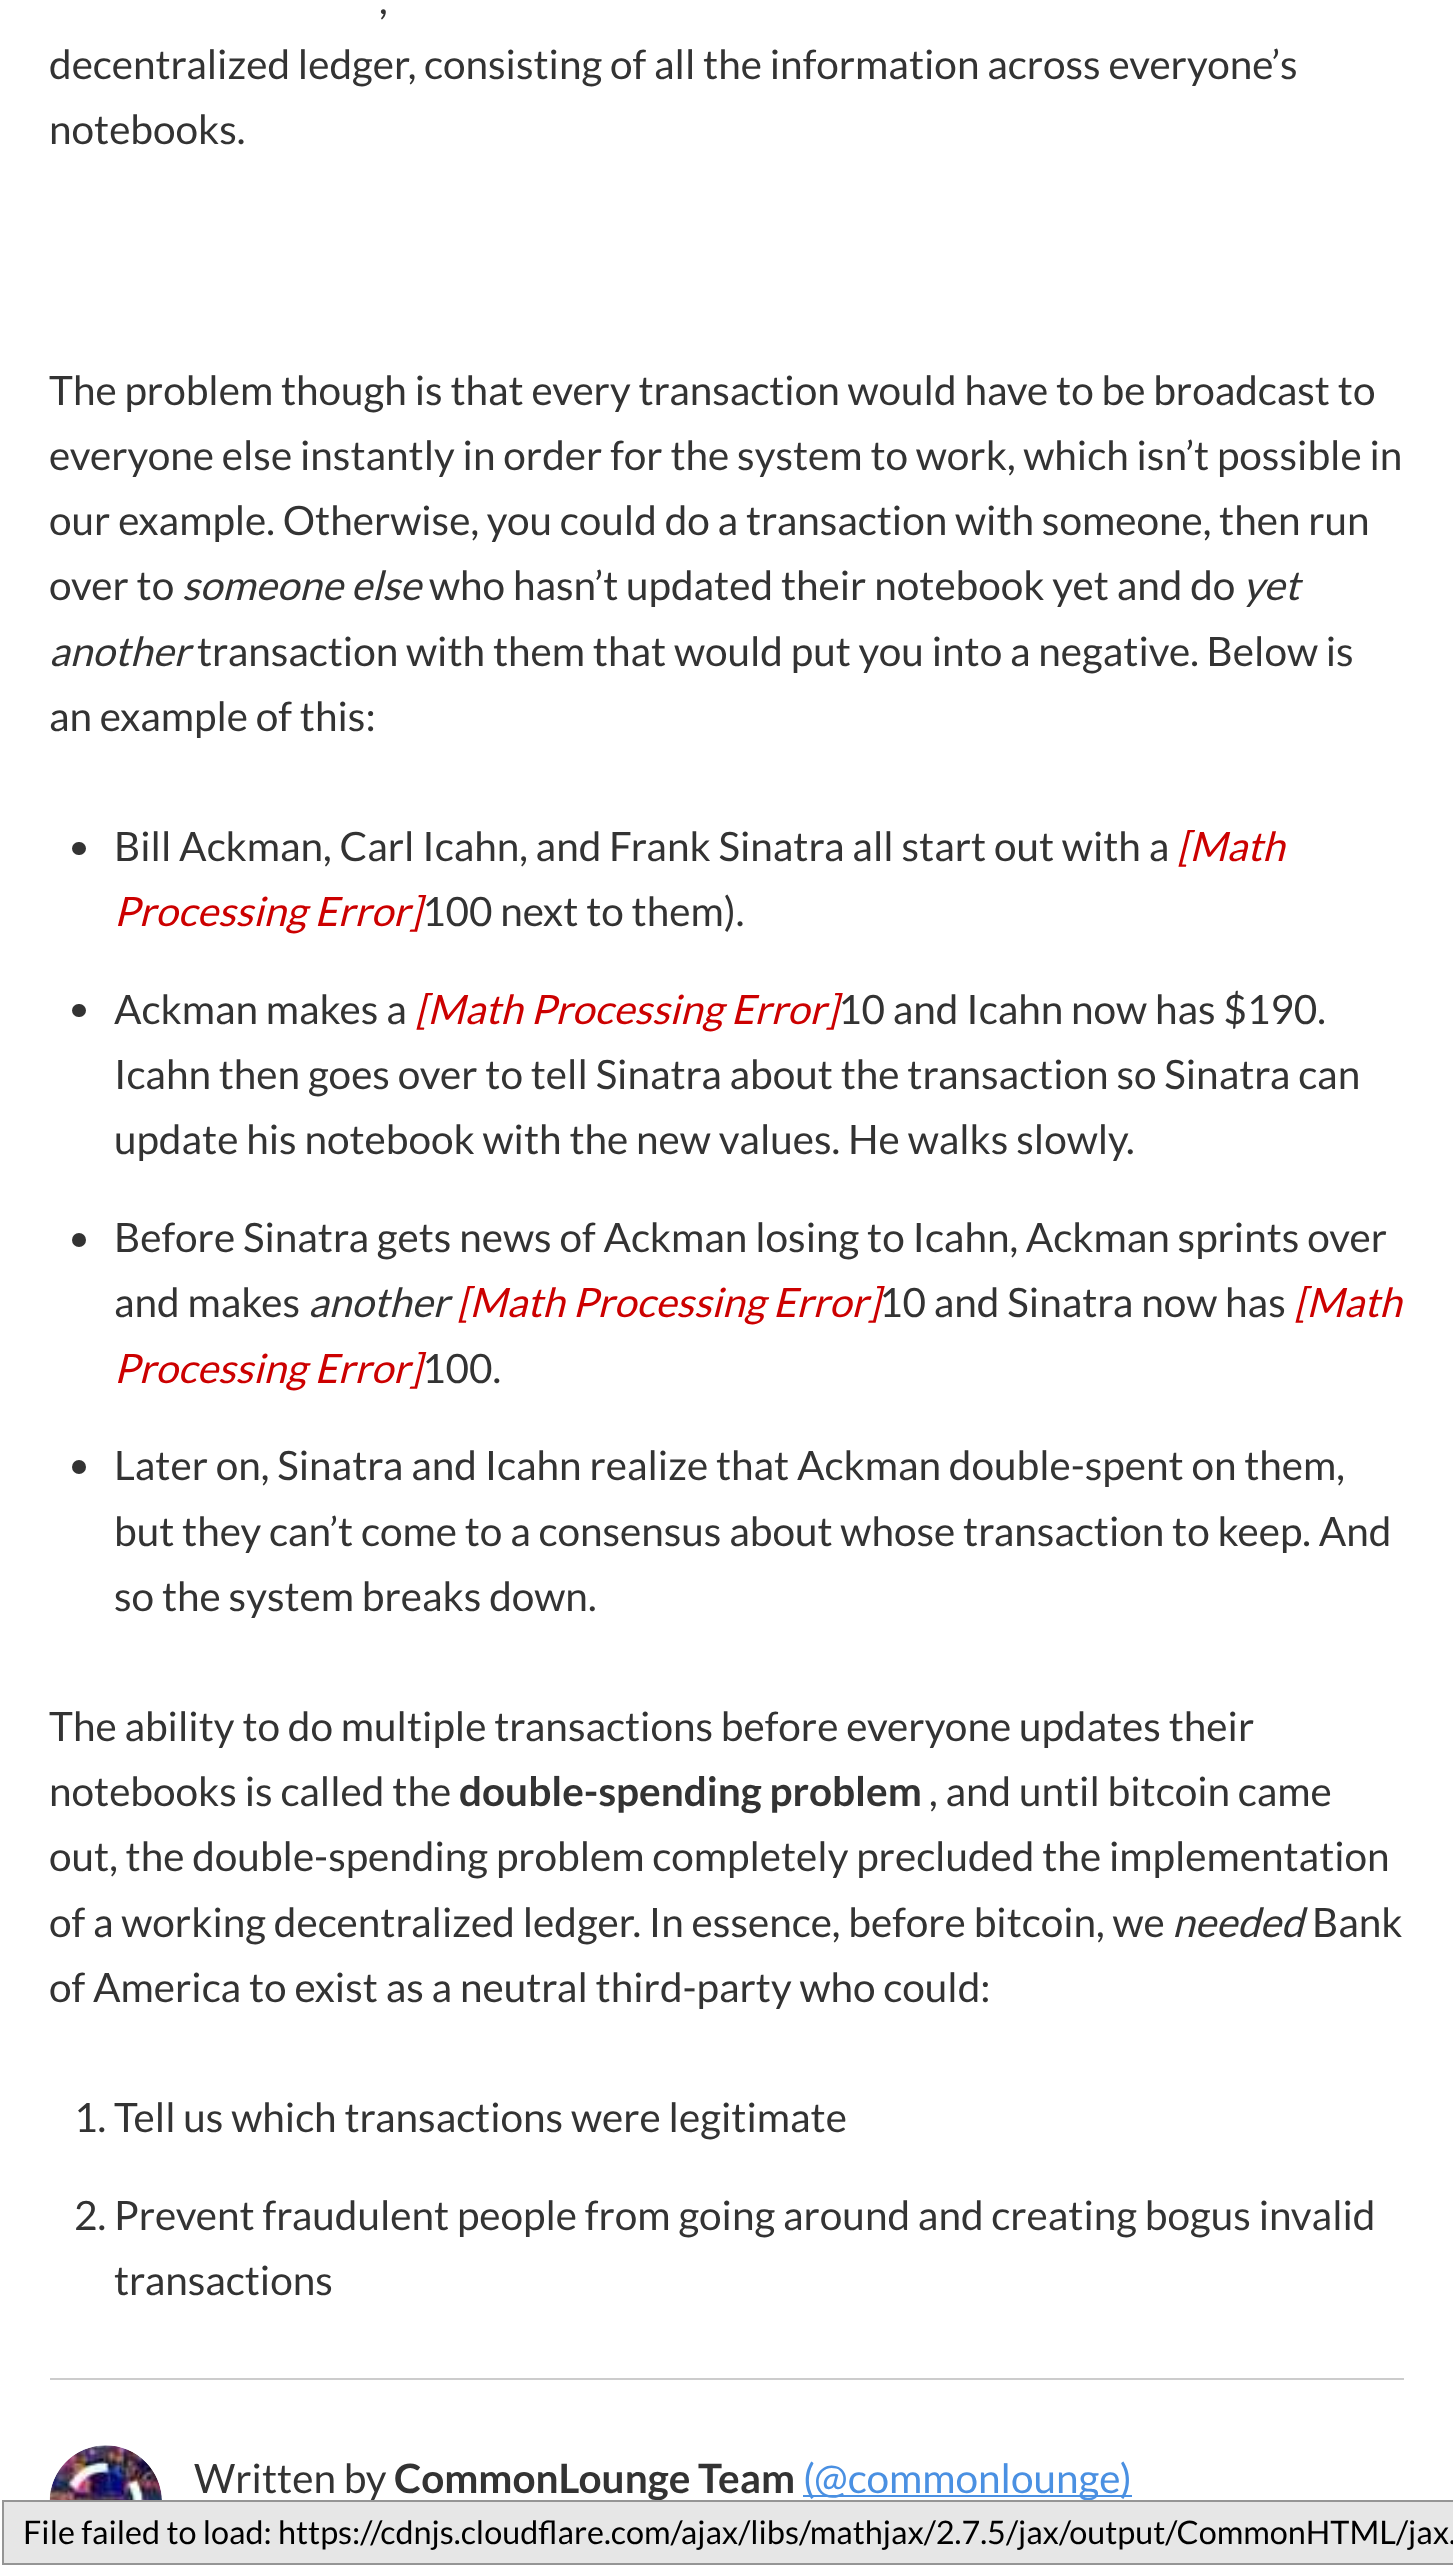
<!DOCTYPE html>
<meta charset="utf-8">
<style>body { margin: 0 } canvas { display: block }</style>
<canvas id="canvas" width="1453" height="2568"></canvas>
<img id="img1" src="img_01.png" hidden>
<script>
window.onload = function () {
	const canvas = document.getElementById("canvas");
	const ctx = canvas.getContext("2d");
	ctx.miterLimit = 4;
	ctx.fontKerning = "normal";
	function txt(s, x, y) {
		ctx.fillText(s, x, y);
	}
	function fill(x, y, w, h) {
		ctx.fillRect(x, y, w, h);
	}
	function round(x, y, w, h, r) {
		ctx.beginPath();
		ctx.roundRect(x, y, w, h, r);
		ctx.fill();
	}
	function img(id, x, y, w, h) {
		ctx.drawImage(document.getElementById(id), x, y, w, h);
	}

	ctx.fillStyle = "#FFFFFF";
	fill(0, 0, 1453, 2568);
	ctx.fillStyle = "#333333";
	round(72, 842, 14, 13, 6.5);
	round(72, 1004, 14, 13, 6.5);
	ctx.beginPath();
	ctx.arc(79, 1240, 7, 0, Math.PI * 2);
	ctx.fill();
	ctx.beginPath();
	ctx.arc(79, 1467, 7, 0, Math.PI * 2);
	ctx.fill();
	ctx.fillStyle = "#CCCCCC";
	fill(50, 2378, 1354, 2);
	img("img1", 49, 2445, 113, 55);
	ctx.fillStyle = "#4A90E2";
	fill(803, 2495, 329, 2);
	ctx.font = "40.5px Lato";
	ctx.fillStyle = "#333333";
	txt(",", 379, 14);
	txt("decentralized ledger, consisting of all the information across everyone’s", 49, 79);
	txt("notebooks.", 49, 144);
	txt("The problem though is that every transaction would have to be broadcast to", 49, 405);
	txt("everyone else instantly in order for the system to work, which isn’t possible in", 49, 470);
	txt("our example. Otherwise, you could do a transaction with someone, then run", 49, 535);
	txt("over to", 49, 600);
	ctx.font = "italic 40.5px Lato";
	txt("someone else", 182, 600);
	ctx.font = "40.5px Lato";
	txt("who hasn’t updated their notebook yet and do", 429, 600);
	ctx.font = "italic 40.5px Lato";
	txt("yet", 1243, 600);
	txt("another", 49, 666);
	ctx.font = "40.5px Lato";
	txt("transaction with them that would put you into a negative. Below is", 197, 666);
	txt("an example of this:", 49, 731);
	txt("Bill Ackman, Carl Icahn, and Frank Sinatra all start out with a", 114, 861);
	ctx.font = "italic 40.5px Lato";
	ctx.fillStyle = "#CC0000";
	txt("[Math", 1177, 861);
	ctx.font = "40.5px Lato";
	ctx.fillStyle = "#333333";
	txt("100 next to them).", 422, 926);
	ctx.font = "italic 40.5px Lato";
	ctx.fillStyle = "#CC0000";
	txt("Processing Error]", 114, 926);
	ctx.font = "40.5px Lato";
	ctx.fillStyle = "#333333";
	txt("Ackman makes a", 114, 1024);
	txt("10 and Icahn now has $190.", 838, 1024);
	ctx.font = "italic 40.5px Lato";
	ctx.fillStyle = "#CC0000";
	txt("[Math Processing Error]", 415, 1024);
	ctx.font = "40.5px Lato";
	ctx.fillStyle = "#333333";
	txt("Icahn then goes over to tell Sinatra about the transaction so Sinatra can", 114, 1089);
	txt("update his notebook with the new values. He walks slowly.", 114, 1154);
	txt("Before Sinatra gets news of Ackman losing to Icahn, Ackman sprints over", 114, 1252);
	txt("and makes", 114, 1317);
	ctx.font = "italic 40.5px Lato";
	txt("another", 308, 1317);
	ctx.font = "40.5px Lato";
	txt("10 and Sinatra now has", 879, 1317);
	ctx.font = "italic 40.5px Lato";
	ctx.fillStyle = "#CC0000";
	txt("[Math Processing Error]", 457, 1317);
	txt("[Math", 1294, 1317);
	ctx.font = "40.5px Lato";
	ctx.fillStyle = "#333333";
	txt("100.", 422, 1383);
	ctx.font = "italic 40.5px Lato";
	ctx.fillStyle = "#CC0000";
	txt("Processing Error]", 114, 1383);
	ctx.font = "40.5px Lato";
	ctx.fillStyle = "#333333";
	txt("Later on, Sinatra and Icahn realize that Ackman double-spent on them,", 114, 1480);
	txt("but they can’t come to a consensus about whose transaction to keep. And", 114, 1546);
	txt("so the system breaks down.", 114, 1611);
	txt("The ability to do multiple transactions before everyone updates their", 49, 1741);
	txt("notebooks is called the", 49, 1806);
	ctx.font = "bold 40.5px Lato";
	txt("double-spending problem", 459, 1806);
	ctx.font = "40.5px Lato";
	txt(", and until bitcoin came", 929, 1806);
	txt("out, the double-spending problem completely precluded the implementation", 49, 1871);
	txt("of a working decentralized ledger. In essence, before bitcoin, we", 49, 1937);
	ctx.font = "italic 40.5px Lato";
	txt("needed", 1172, 1937);
	ctx.font = "40.5px Lato";
	txt("Bank", 1312, 1937);
	txt("of America to exist as a neutral third-party who could:", 49, 2002);
	txt("1. Tell us which transactions were legitimate", 74, 2132);
	txt("2. Prevent fraudulent people from going around and creating bogus invalid", 74, 2230);
	txt("transactions", 114, 2295);
	txt("Written by", 194, 2493);
	ctx.font = "bold 40.5px Lato";
	txt("CommonLounge Team", 394, 2493);
	ctx.font = "40.5px Lato";
	ctx.fillStyle = "#4A90E2";
	txt("(@commonlounge)", 803, 2493);
	ctx.fillStyle = "#E6E6E6";
	ctx.beginPath();
	ctx.rect(3, 2501, 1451, 63);
	ctx.fill();
	ctx.strokeStyle = "#959595";
	ctx.lineWidth = 2;
	ctx.stroke();
	ctx.font = "32.4px Lato";
	ctx.fillStyle = "#000000";
	txt("File failed to load: https://cdnjs.cloudflare.com/ajax/libs/mathjax/2.7.5/jax/output/CommonHTML/jax.", 23, 2544);
};
</script>
